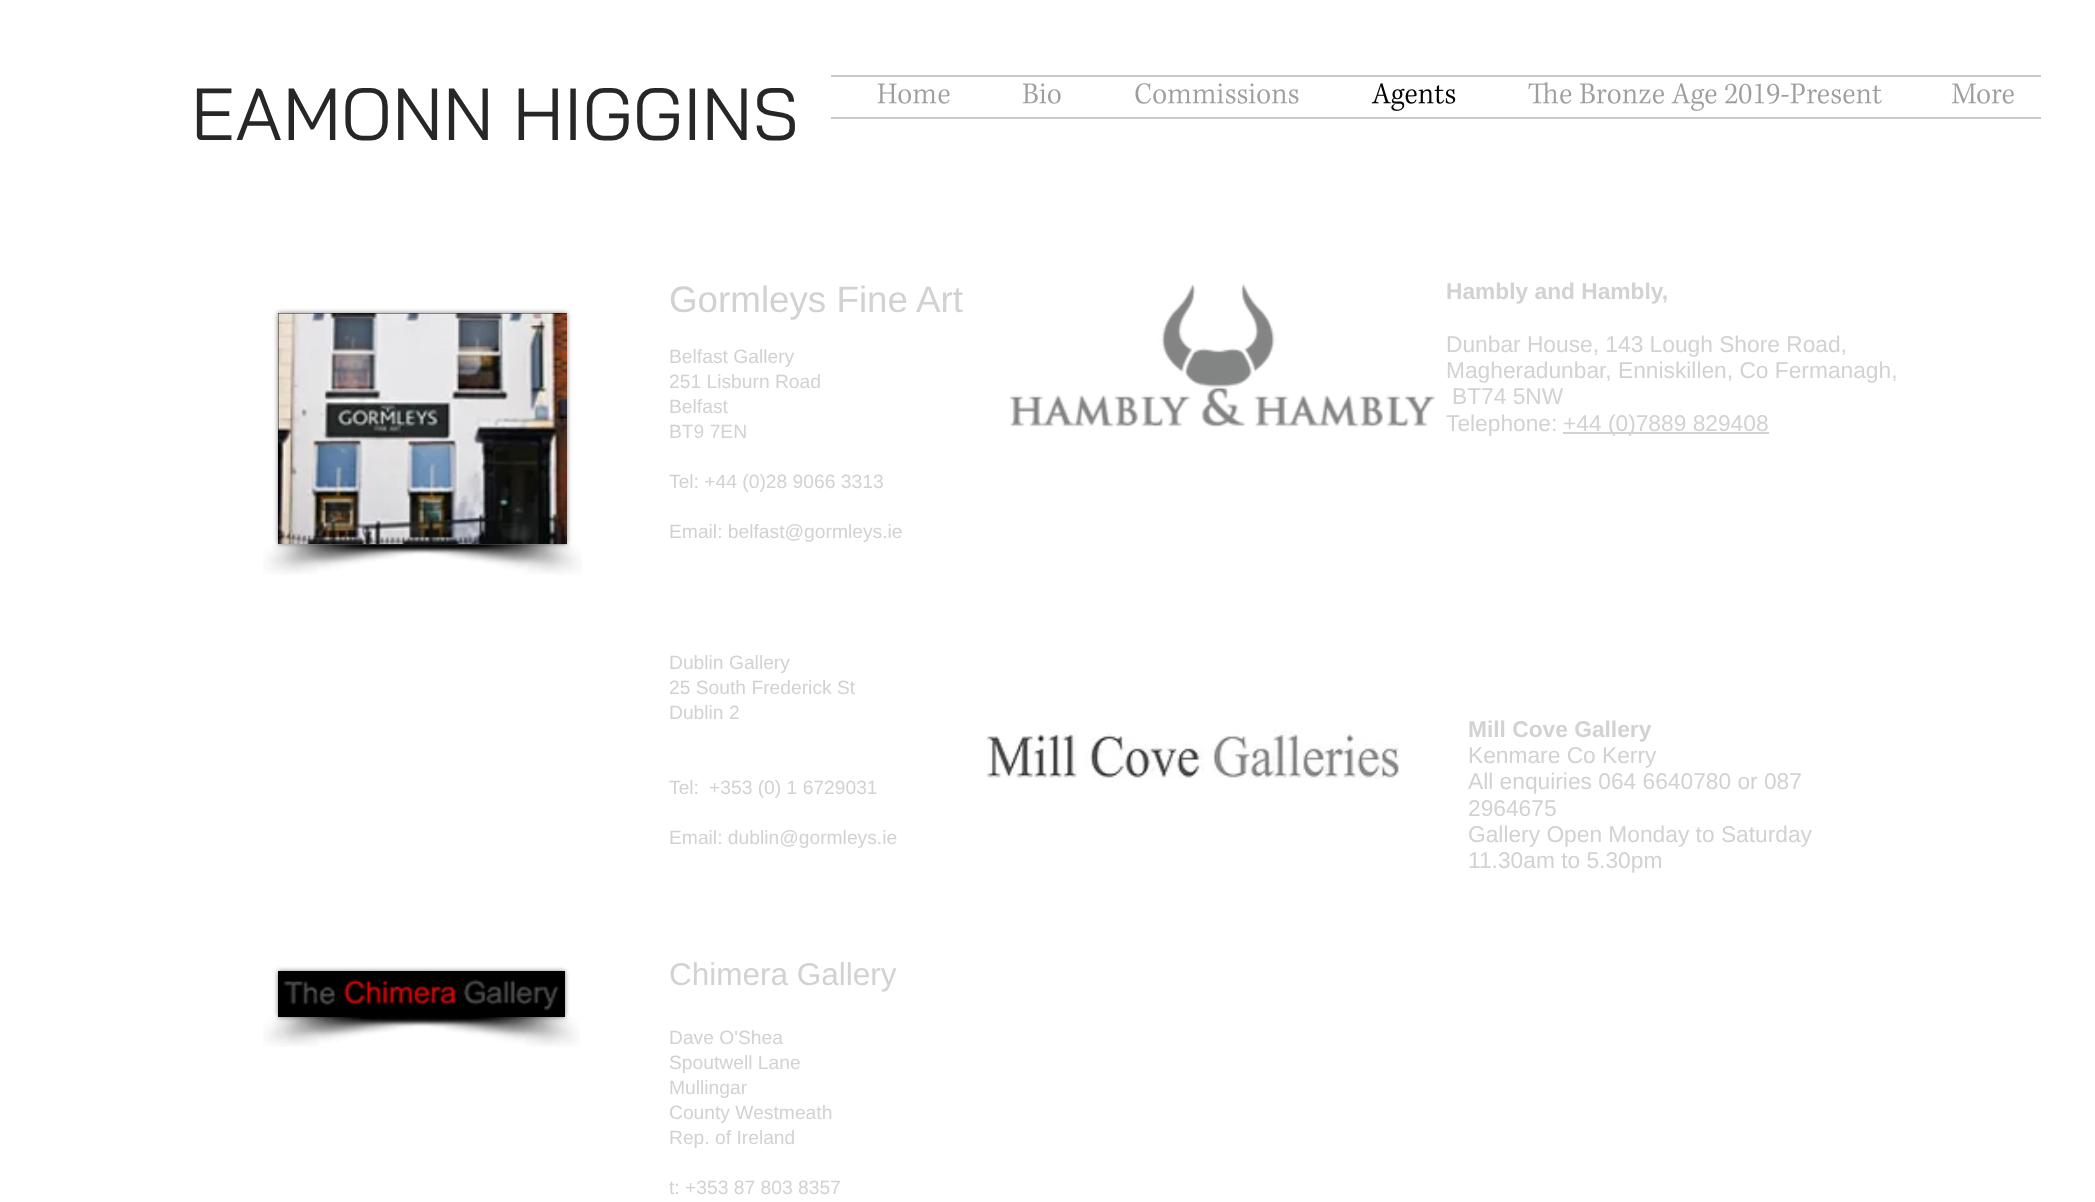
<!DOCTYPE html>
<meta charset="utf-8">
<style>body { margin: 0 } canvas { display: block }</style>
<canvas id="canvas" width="2095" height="1202"></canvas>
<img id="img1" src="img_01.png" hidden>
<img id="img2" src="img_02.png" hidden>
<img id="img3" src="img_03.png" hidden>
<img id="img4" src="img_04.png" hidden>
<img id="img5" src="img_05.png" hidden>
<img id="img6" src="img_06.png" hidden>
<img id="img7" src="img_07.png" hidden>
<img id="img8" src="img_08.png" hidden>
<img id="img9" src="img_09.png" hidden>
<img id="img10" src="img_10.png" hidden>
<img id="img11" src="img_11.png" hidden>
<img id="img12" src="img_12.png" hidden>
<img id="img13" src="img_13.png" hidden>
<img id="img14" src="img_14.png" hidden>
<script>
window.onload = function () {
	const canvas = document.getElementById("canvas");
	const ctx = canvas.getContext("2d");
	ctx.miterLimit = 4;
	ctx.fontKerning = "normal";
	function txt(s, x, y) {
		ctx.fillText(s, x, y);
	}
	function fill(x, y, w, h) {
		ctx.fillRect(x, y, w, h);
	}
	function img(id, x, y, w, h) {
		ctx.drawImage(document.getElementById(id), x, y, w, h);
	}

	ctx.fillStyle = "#FFFFFF";
	fill(0, 0, 2095, 1202);
	ctx.fillStyle = "#CACACA";
	fill(831, 75, 1210, 2);
	fill(831, 117, 1210, 2);
	img("img1", 877, 83, 73, 21);
	img("img2", 1022, 83, 39, 21);
	img("img3", 1135, 83, 164, 21);
	img("img4", 1371, 83, 85, 28);
	img("img5", 1528, 82, 354, 29);
	img("img6", 1951, 83, 63, 21);
	ctx.fillStyle = "rgba(0, 0, 0, 0.5)";
	ctx.filter = "blur(2.5px)";
	ctx.beginPath();
	ctx.rect(278, 313, 289, 231);
	ctx.fill();
	ctx.filter = "none";
	ctx.fillStyle = "#000000";
	fill(278, 313, 289, 231);
	img("img7", 278, 313, 289, 232);
	img("img8", 263, 544, 260, 31);
	img("img9", 345, 544, 237, 31);
	img("img10", 1010, 283, 425, 144);
	ctx.fillStyle = "#D2D2D2";
	fill(1563, 432, 206, 2);
	img("img11", 986, 730, 414, 49);
	ctx.fillStyle = "rgba(0, 0, 0, 0.5)";
	ctx.filter = "blur(2.5px)";
	ctx.beginPath();
	ctx.rect(278, 971, 287, 46);
	ctx.fill();
	ctx.filter = "none";
	ctx.fillStyle = "#000000";
	fill(278, 971, 287, 46);
	img("img12", 283, 979, 276, 32);
	img("img13", 263, 1017, 269, 30);
	img("img14", 361, 1017, 219, 30);
	ctx.font = "73.5px Bai Jamjuree";
	ctx.fillStyle = "#272727";
	txt("EAMONN HIGGINS", 191, 140);
	ctx.font = "36.75px Liberation Sans";
	ctx.fillStyle = "#D2D2D2";
	txt("Gormleys Fine Art", 669, 312);
	ctx.font = "19.25px Liberation Sans";
	txt("Belfast Gallery", 669, 363);
	txt("251 Lisburn Road", 669, 388);
	txt("Belfast", 669, 413);
	txt("BT9 7EN", 669, 438);
	txt("Tel: +44 (0)28 9066 3313", 669, 488);
	txt("Email: belfast@gormleys.ie", 669, 538);
	ctx.font = "bold 22.75px Liberation Sans";
	txt("Hambly and Hambly,", 1446, 299);
	ctx.font = "22.75px Liberation Sans";
	txt("Dunbar House, 143 Lough Shore Road,", 1446, 352);
	txt("Magheradunbar, Enniskillen, Co Fermanagh,", 1446, 378);
	txt("BT74 5NW", 1452, 404);
	txt("Telephone:", 1446, 431);
	txt("+44 (0)7889 829408", 1563, 431);
	ctx.font = "19.25px Liberation Sans";
	txt("Dublin Gallery", 669, 669);
	txt("25 South Frederick St", 669, 694);
	txt("Dublin 2", 669, 719);
	txt("Tel:", 669, 794);
	txt("+353 (0) 1 6729031", 709, 794);
	txt("Email: dublin@gormleys.ie", 669, 844);
	ctx.font = "bold 22.75px Liberation Sans";
	txt("Mill Cove Gallery", 1468, 737);
	ctx.font = "22.75px Liberation Sans";
	txt("Kenmare Co Kerry", 1468, 763);
	txt("All enquiries 064 6640780 or 087", 1468, 789);
	txt("2964675", 1468, 816);
	txt("Gallery Open Monday to Saturday", 1468, 842);
	txt("11.30am to 5.30pm", 1468, 868);
	ctx.font = "31.5px Liberation Sans";
	txt("Chimera Gallery", 669, 985);
	ctx.font = "19.25px Liberation Sans";
	txt("Dave O'Shea", 669, 1044);
	txt("Spoutwell Lane", 669, 1069);
	txt("Mullingar", 669, 1094);
	txt("County Westmeath", 669, 1119);
	txt("Rep. of Ireland", 669, 1144);
	txt("t: +353 87 803 8357", 669, 1194);
};
</script>
